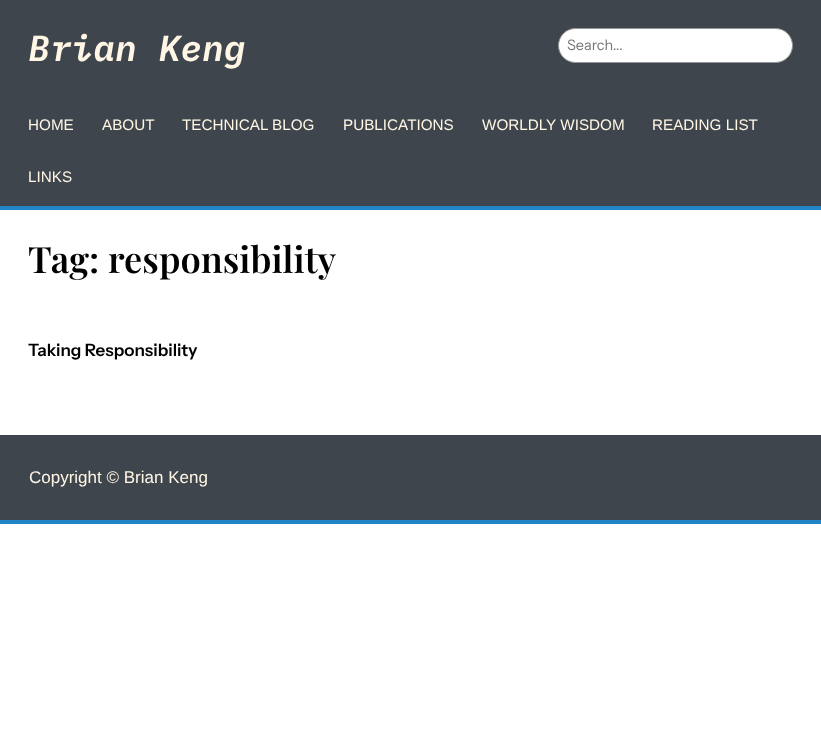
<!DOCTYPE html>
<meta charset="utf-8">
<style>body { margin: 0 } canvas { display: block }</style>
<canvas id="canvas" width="821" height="753"></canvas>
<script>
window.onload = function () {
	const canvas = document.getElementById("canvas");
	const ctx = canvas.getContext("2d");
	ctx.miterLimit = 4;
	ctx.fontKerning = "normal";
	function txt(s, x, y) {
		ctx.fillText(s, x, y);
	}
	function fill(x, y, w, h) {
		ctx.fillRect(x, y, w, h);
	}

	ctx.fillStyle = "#FFFFFF";
	fill(0, 0, 821, 753);
	ctx.fillStyle = "#3E454C";
	fill(0, 0, 821, 206);
	ctx.fillStyle = "#FFFFFF";
	ctx.beginPath();
	ctx.roundRect(558.5, 28.5, 234, 34, 17);
	ctx.fill();
	ctx.strokeStyle = "#949494";
	ctx.stroke();
	ctx.fillStyle = "#2185C5";
	fill(0, 206, 821, 4);
	ctx.fillStyle = "#3E454C";
	fill(0, 435, 821, 85);
	ctx.fillStyle = "#2185C5";
	fill(0, 520, 821, 4);
	ctx.font = "italic 600 36.25px IBM Plex Mono";
	ctx.fillStyle = "#FFF6E5";
	txt("Brian Keng", 28, 61);
	ctx.font = "14.5px Instrument Sans";
	ctx.fillStyle = "#757575";
	txt("Search...", 567, 50);
	ctx.font = "15.25px Liberation Sans";
	ctx.fillStyle = "#FFF6E5";
	txt("HOME", 28, 130);
	txt("ABOUT", 102, 130);
	txt("TECHNICAL BLOG", 182, 130);
	txt("PUBLICATIONS", 343, 130);
	txt("WORLDLY WISDOM", 482, 130);
	txt("READING LIST", 652, 130);
	txt("LINKS", 28, 182);
	ctx.font = "600 36.25px Playfair Display";
	ctx.fillStyle = "#000000";
	txt("Tag: responsibility", 28, 273);
	ctx.font = "600 17px Instrument Sans";
	txt("Taking Responsibility", 28, 356);
	ctx.font = "17px Liberation Sans";
	ctx.fillStyle = "#FFF6E5";
	txt("Copyright © Brian Keng", 29, 483);
};
</script>
